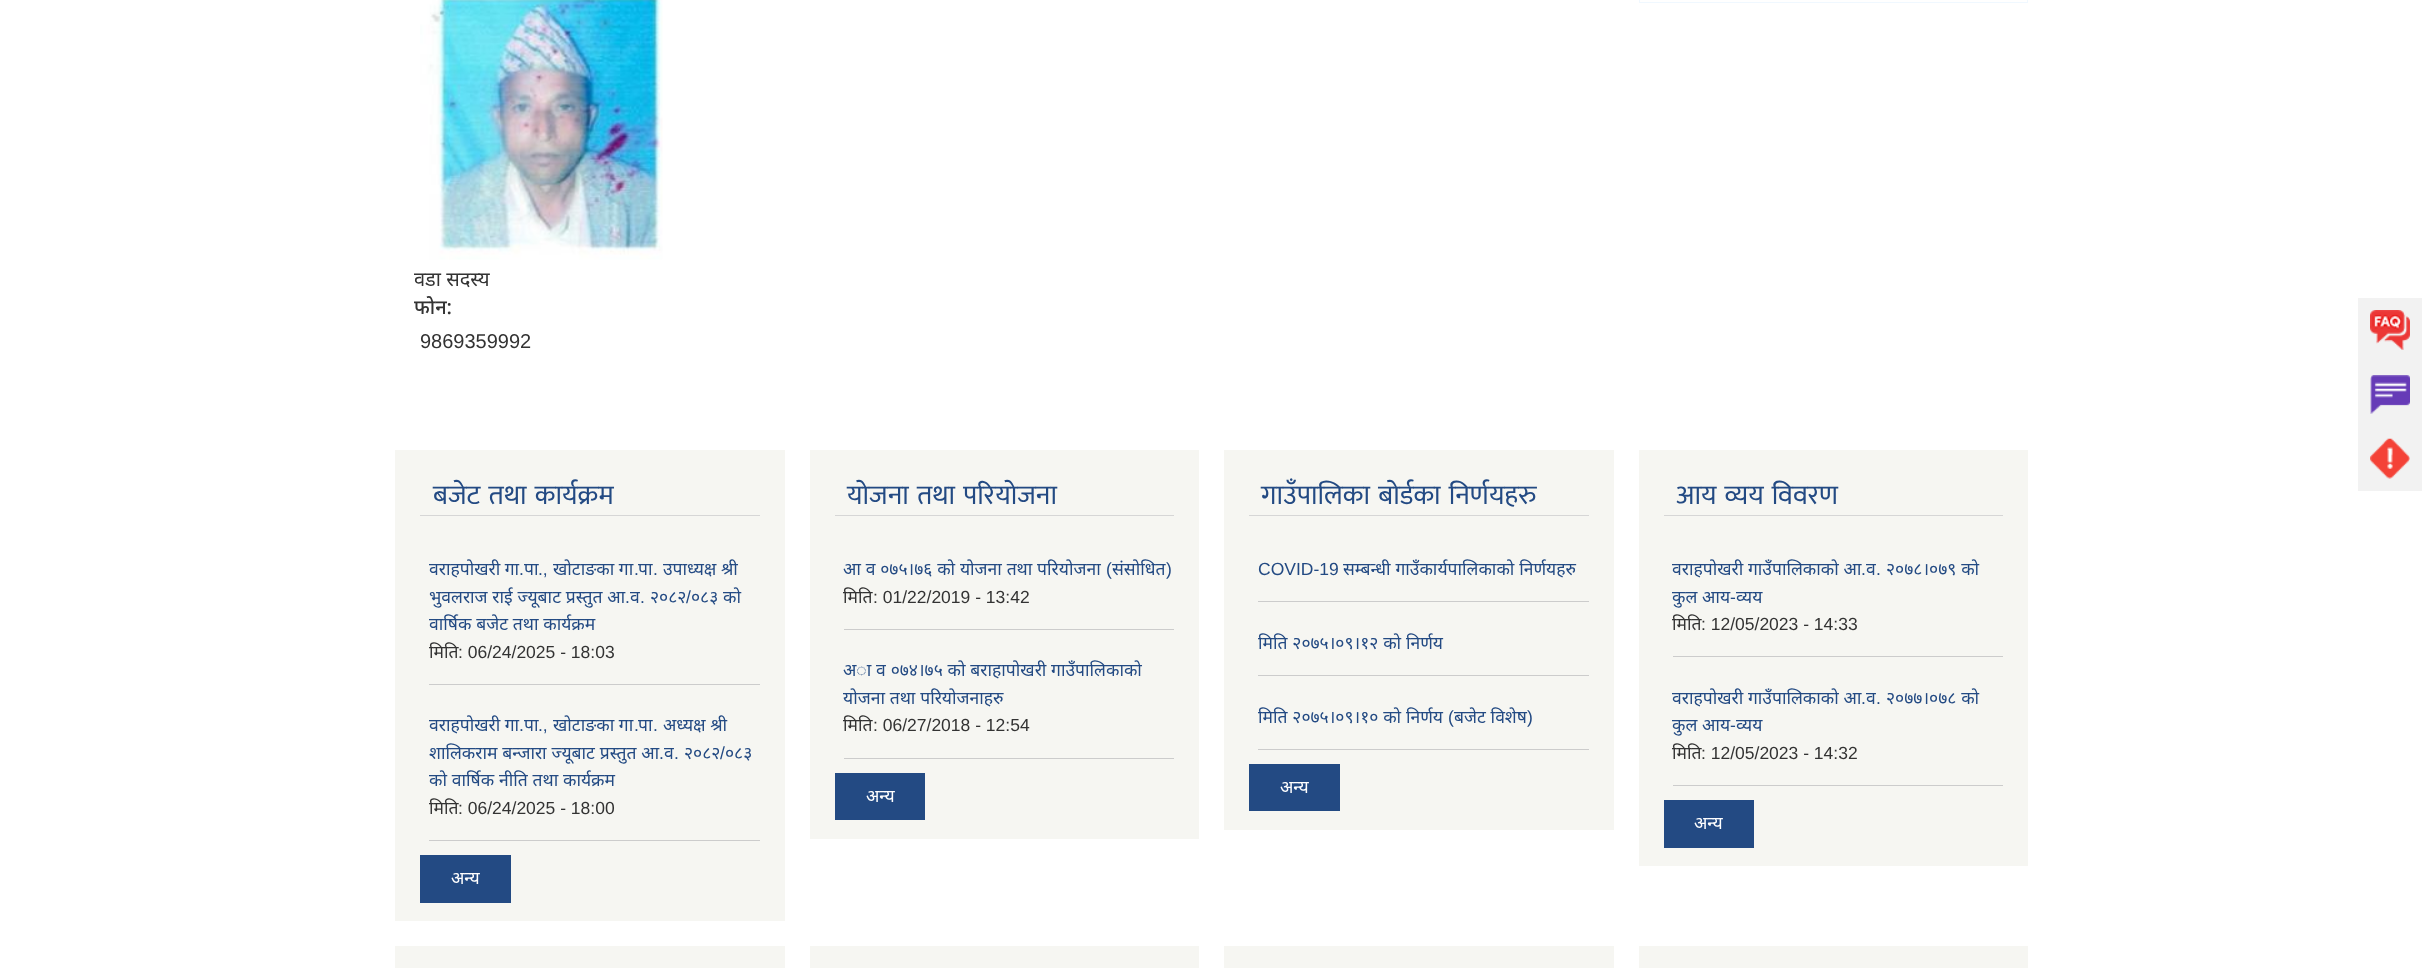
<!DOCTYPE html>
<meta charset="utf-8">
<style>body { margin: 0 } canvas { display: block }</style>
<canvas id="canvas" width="2422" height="968"></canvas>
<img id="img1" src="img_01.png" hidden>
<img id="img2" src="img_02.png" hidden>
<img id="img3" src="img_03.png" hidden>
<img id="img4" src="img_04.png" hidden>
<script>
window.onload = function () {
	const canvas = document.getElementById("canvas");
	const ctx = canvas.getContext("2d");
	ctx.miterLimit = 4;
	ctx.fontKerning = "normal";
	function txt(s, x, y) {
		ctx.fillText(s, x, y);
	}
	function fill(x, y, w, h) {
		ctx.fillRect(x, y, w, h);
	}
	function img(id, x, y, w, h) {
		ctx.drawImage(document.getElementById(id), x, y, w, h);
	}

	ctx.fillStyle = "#FFFFFF";
	fill(0, 0, 2422, 968);
	ctx.strokeStyle = "#F0F8FF";
	ctx.strokeRect(1639.5, -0.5, 388, 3);
	img("img1", 420, 0, 243, 260);
	ctx.fillStyle = "#F6F6F2";
	fill(395, 450, 390, 471);
	ctx.fillStyle = "#D6D6D6";
	fill(420, 515, 340, 1);
	ctx.fillStyle = "#CCCCCC";
	fill(429, 684, 331, 1);
	fill(429, 840, 331, 1);
	ctx.fillStyle = "#234A83";
	fill(420, 855, 91, 48);
	ctx.fillStyle = "#F6F6F2";
	fill(810, 450, 389, 389);
	ctx.fillStyle = "#D6D6D6";
	fill(835, 515, 339, 1);
	ctx.fillStyle = "#CCCCCC";
	fill(844, 629, 330, 1);
	fill(844, 758, 330, 1);
	ctx.fillStyle = "#234A83";
	fill(835, 773, 90, 47);
	ctx.fillStyle = "#F6F6F2";
	fill(1224, 450, 390, 380);
	ctx.fillStyle = "#D6D6D6";
	fill(1249, 515, 340, 1);
	ctx.fillStyle = "#CCCCCC";
	fill(1258, 601, 331, 1);
	fill(1258, 675, 331, 1);
	fill(1258, 749, 331, 1);
	ctx.fillStyle = "#234A83";
	fill(1249, 764, 91, 47);
	ctx.fillStyle = "#F6F6F2";
	fill(1639, 450, 389, 416);
	ctx.fillStyle = "#D6D6D6";
	fill(1664, 515, 339, 1);
	ctx.fillStyle = "#CCCCCC";
	fill(1673, 656, 330, 1);
	fill(1673, 785, 330, 1);
	ctx.fillStyle = "#234A83";
	fill(1664, 800, 90, 48);
	ctx.fillStyle = "#F6F6F2";
	fill(395, 946, 390, 22);
	fill(810, 946, 389, 22);
	fill(1224, 946, 390, 22);
	fill(1639, 946, 389, 22);
	ctx.fillStyle = "#F2F2F2";
	fill(2358, 298, 64, 193);
	img("img2", 2370, 310, 40, 40);
	img("img3", 2370, 375, 40, 39);
	img("img4", 2370, 438, 40, 41);
	ctx.font = "20px Noto Sans";
	ctx.fillStyle = "#333333";
	txt("वडा सदस्य", 414, 286);
	ctx.font = "500 20px Noto Sans";
	txt("फोन:", 414, 314);
	ctx.font = "20px Liberation Sans";
	txt("9869359992", 420, 348);
	ctx.wordSpacing = "2px";
	ctx.font = "27.5px Mukta";
	ctx.fillStyle = "#234A83";
	txt("बजेट तथा कार्यक्रम", 433, 504);
	ctx.wordSpacing = "0px";
	ctx.font = "17.5px Noto Sans";
	txt("वराहपोखरी गा", 429, 575);
	ctx.font = "17.5px Liberation Sans";
	txt(".", 519, 575);
	ctx.font = "17.5px Noto Sans";
	txt("पा", 524, 575);
	ctx.font = "17.5px Liberation Sans";
	txt(".,", 538, 575);
	ctx.font = "17.5px Noto Sans";
	txt("खोटाङका गा", 553, 575);
	ctx.font = "17.5px Liberation Sans";
	txt(".", 634, 575);
	ctx.font = "17.5px Noto Sans";
	txt("पा", 638, 575);
	ctx.font = "17.5px Liberation Sans";
	txt(".", 653, 575);
	ctx.font = "17.5px Noto Sans";
	txt("उपाध्यक्ष श्री", 663, 575);
	ctx.wordSpacing = "0.25px";
	txt("भुवलराज राई ज्यूबाट प्रस्तुत आ", 429, 603);
	ctx.wordSpacing = "0px";
	ctx.font = "17.5px Liberation Sans";
	txt(".", 625, 603);
	ctx.font = "17.5px Noto Sans";
	txt("व", 630, 603);
	ctx.font = "17.5px Liberation Sans";
	txt(".", 640, 603);
	ctx.font = "17.5px Noto Sans";
	txt("२०८२", 650, 603);
	ctx.font = "17.5px Liberation Sans";
	txt("/", 686, 603);
	ctx.wordSpacing = "0.25px";
	ctx.font = "17.5px Noto Sans";
	txt("०८३ को", 691, 603);
	txt("वार्षिक बजेट तथा कार्यक्रम", 429, 630);
	ctx.wordSpacing = "0px";
	ctx.fillStyle = "#333333";
	txt("मिति", 429, 658);
	ctx.font = "17.5px Liberation Sans";
	txt(": 06/24/2025 - 18:03", 458, 658);
	ctx.font = "17.5px Noto Sans";
	ctx.fillStyle = "#234A83";
	txt("वराहपोखरी गा", 429, 731);
	ctx.font = "17.5px Liberation Sans";
	txt(".", 519, 731);
	ctx.font = "17.5px Noto Sans";
	txt("पा", 524, 731);
	ctx.font = "17.5px Liberation Sans";
	txt(".,", 538, 731);
	ctx.font = "17.5px Noto Sans";
	txt("खोटाङका गा", 553, 731);
	ctx.font = "17.5px Liberation Sans";
	txt(".", 634, 731);
	ctx.font = "17.5px Noto Sans";
	txt("पा", 638, 731);
	ctx.font = "17.5px Liberation Sans";
	txt(".", 653, 731);
	ctx.font = "17.5px Noto Sans";
	txt("अध्यक्ष श्री", 663, 731);
	ctx.wordSpacing = "0.25px";
	txt("शालिकराम बन्जारा ज्यूबाट प्रस्तुत आ", 429, 759);
	ctx.wordSpacing = "0px";
	ctx.font = "17.5px Liberation Sans";
	txt(".", 659, 759);
	ctx.font = "17.5px Noto Sans";
	txt("व", 664, 759);
	ctx.font = "17.5px Liberation Sans";
	txt(".", 674, 759);
	ctx.font = "17.5px Noto Sans";
	txt("२०८२", 684, 759);
	ctx.font = "17.5px Liberation Sans";
	txt("/", 720, 759);
	ctx.font = "17.5px Noto Sans";
	txt("०८३", 725, 759);
	ctx.wordSpacing = "0.25px";
	txt("को वार्षिक नीति तथा कार्यक्रम", 429, 786);
	ctx.wordSpacing = "0px";
	ctx.fillStyle = "#333333";
	txt("मिति", 429, 814);
	ctx.font = "17.5px Liberation Sans";
	txt(": 06/24/2025 - 18:00", 458, 814);
	ctx.font = "17.5px Noto Sans";
	ctx.fillStyle = "#FFFFFF";
	txt("अन्य", 451, 884);
	ctx.wordSpacing = "2px";
	ctx.font = "27.5px Mukta";
	ctx.fillStyle = "#234A83";
	txt("योजना तथा परियोजना", 847, 504);
	ctx.wordSpacing = "0.25px";
	ctx.font = "17.5px Noto Sans";
	txt("आ व ०७५।७६ को योजना तथा परियोजना", 843, 575);
	ctx.wordSpacing = "0px";
	ctx.font = "17.5px Liberation Sans";
	txt("(", 1106, 575);
	ctx.font = "17.5px Noto Sans";
	txt("संसोधित", 1112, 575);
	ctx.font = "17.5px Liberation Sans";
	txt(")", 1166, 575);
	ctx.font = "17.5px Noto Sans";
	ctx.fillStyle = "#333333";
	txt("मिति", 843, 603);
	ctx.font = "17.5px Liberation Sans";
	txt(": 01/22/2019 - 13:42", 873, 603);
	ctx.wordSpacing = "0.25px";
	ctx.font = "17.5px Noto Sans";
	ctx.fillStyle = "#234A83";
	txt("अा व ०७४।७५ को बराहापोखरी गाउँपालिकाको", 843, 676);
	txt("योजना तथा परियोजनाहरु", 843, 704);
	ctx.wordSpacing = "0px";
	ctx.fillStyle = "#333333";
	txt("मिति", 843, 731);
	ctx.font = "17.5px Liberation Sans";
	txt(": 06/27/2018 - 12:54", 873, 731);
	ctx.font = "17.5px Noto Sans";
	ctx.fillStyle = "#FFFFFF";
	txt("अन्य", 866, 802);
	ctx.wordSpacing = "2px";
	ctx.font = "27.5px Mukta";
	ctx.fillStyle = "#234A83";
	txt("गाउँपालिका बोर्डका निर्णयहरु", 1261, 504);
	ctx.wordSpacing = "0px";
	ctx.font = "17.5px Liberation Sans";
	txt("COVID-19", 1258, 575);
	ctx.wordSpacing = "0.25px";
	ctx.font = "17.5px Noto Sans";
	txt("सम्बन्धी गाउँकार्यपालिकाको निर्णयहरु", 1343, 575);
	txt("मिति २०७५।०९।१२ को निर्णय", 1258, 649);
	txt("मिति २०७५।०९।१० को निर्णय", 1258, 723);
	ctx.wordSpacing = "0px";
	ctx.font = "17.5px Liberation Sans";
	txt("(", 1448, 723);
	ctx.wordSpacing = "0.25px";
	ctx.font = "17.5px Noto Sans";
	txt("बजेट विशेष", 1454, 723);
	ctx.wordSpacing = "0px";
	ctx.font = "17.5px Liberation Sans";
	txt(")", 1527, 723);
	ctx.font = "17.5px Noto Sans";
	ctx.fillStyle = "#FFFFFF";
	txt("अन्य", 1280, 793);
	ctx.wordSpacing = "2px";
	ctx.font = "27.5px Mukta";
	ctx.fillStyle = "#234A83";
	txt("आय व्यय विवरण", 1676, 504);
	ctx.wordSpacing = "0.25px";
	ctx.font = "17.5px Noto Sans";
	txt("वराहपोखरी गाउँपालिकाको आ", 1672, 575);
	ctx.wordSpacing = "0px";
	ctx.font = "17.5px Liberation Sans";
	txt(".", 1861, 575);
	ctx.font = "17.5px Noto Sans";
	txt("व", 1866, 575);
	ctx.font = "17.5px Liberation Sans";
	txt(".", 1876, 575);
	ctx.wordSpacing = "0.25px";
	ctx.font = "17.5px Noto Sans";
	txt("२०७८।०७९ को", 1886, 575);
	txt("कुल आय", 1672, 603);
	ctx.wordSpacing = "0px";
	ctx.font = "17.5px Liberation Sans";
	txt("-", 1730, 603);
	ctx.font = "17.5px Noto Sans";
	txt("व्यय", 1736, 603);
	ctx.fillStyle = "#333333";
	txt("मिति", 1672, 630);
	ctx.font = "17.5px Liberation Sans";
	txt(": 12/05/2023 - 14:33", 1701, 630);
	ctx.wordSpacing = "0.25px";
	ctx.font = "17.5px Noto Sans";
	ctx.fillStyle = "#234A83";
	txt("वराहपोखरी गाउँपालिकाको आ", 1672, 704);
	ctx.wordSpacing = "0px";
	ctx.font = "17.5px Liberation Sans";
	txt(".", 1861, 704);
	ctx.font = "17.5px Noto Sans";
	txt("व", 1866, 704);
	ctx.font = "17.5px Liberation Sans";
	txt(".", 1876, 704);
	ctx.wordSpacing = "0.25px";
	ctx.font = "17.5px Noto Sans";
	txt("२०७७।०७८ को", 1886, 704);
	txt("कुल आय", 1672, 731);
	ctx.wordSpacing = "0px";
	ctx.font = "17.5px Liberation Sans";
	txt("-", 1730, 731);
	ctx.font = "17.5px Noto Sans";
	txt("व्यय", 1736, 731);
	ctx.fillStyle = "#333333";
	txt("मिति", 1672, 759);
	ctx.font = "17.5px Liberation Sans";
	txt(": 12/05/2023 - 14:32", 1701, 759);
	ctx.font = "17.5px Noto Sans";
	ctx.fillStyle = "#FFFFFF";
	txt("अन्य", 1694, 829);
};
</script>
